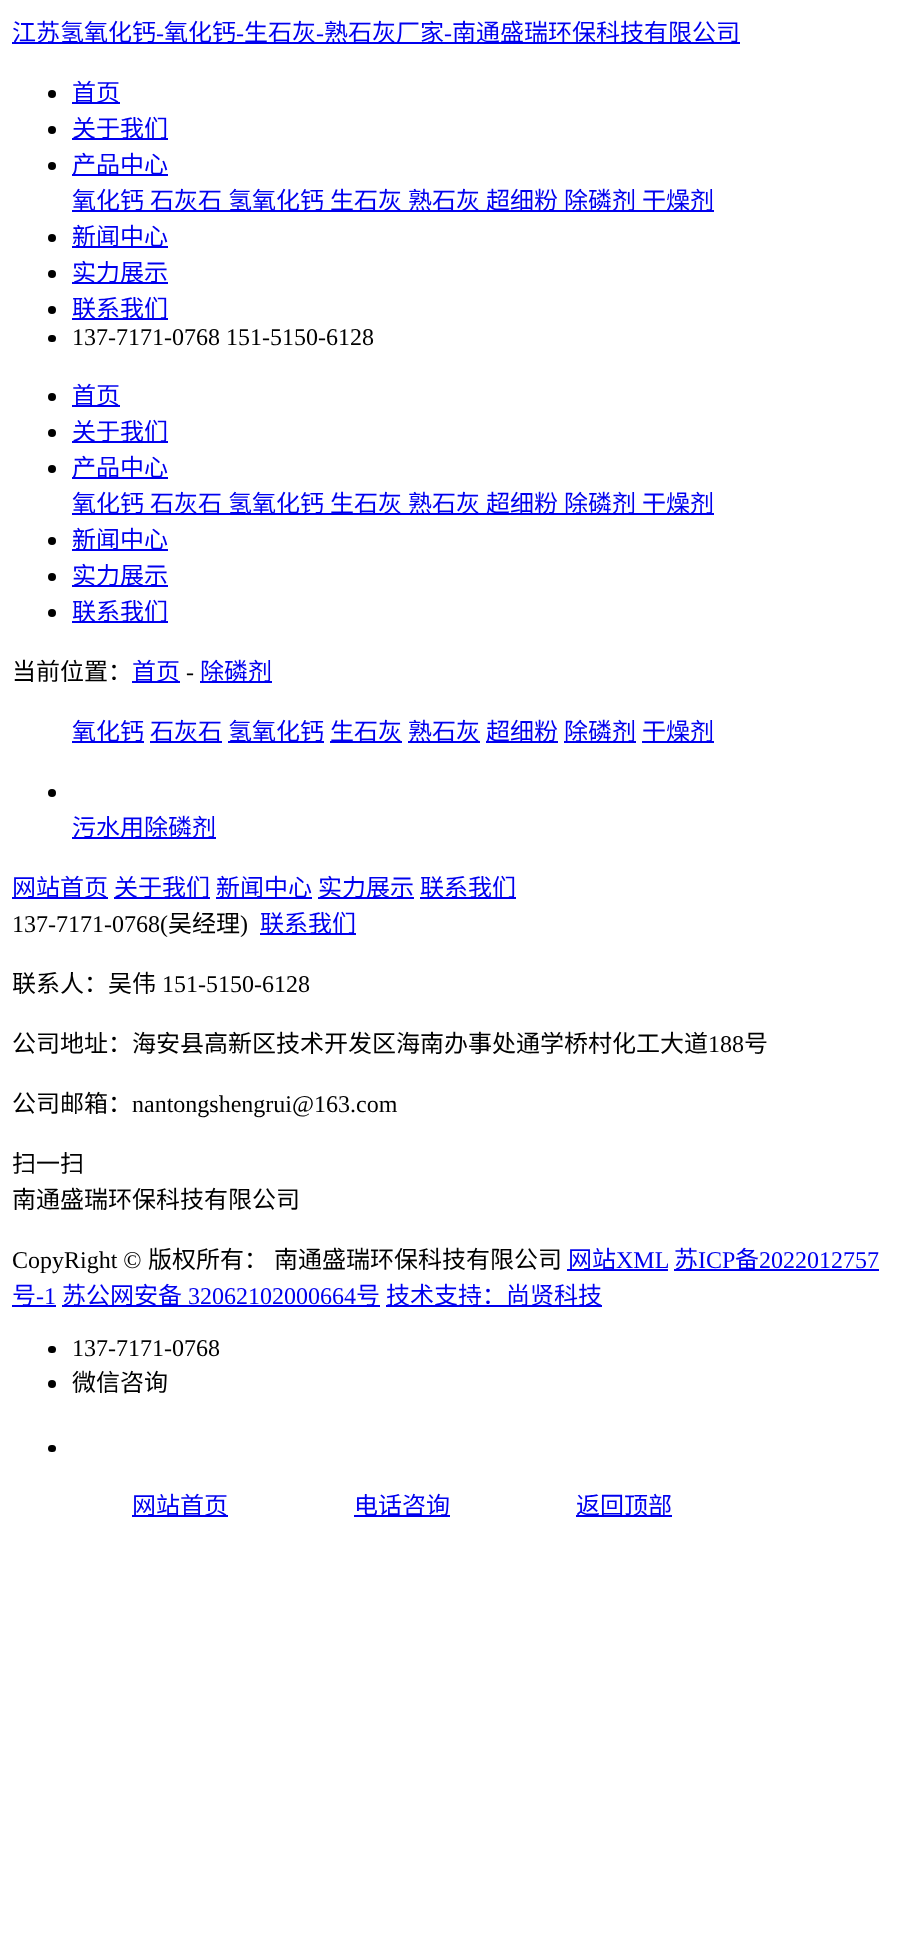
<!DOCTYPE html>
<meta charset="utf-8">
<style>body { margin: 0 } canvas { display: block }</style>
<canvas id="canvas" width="909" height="1939"></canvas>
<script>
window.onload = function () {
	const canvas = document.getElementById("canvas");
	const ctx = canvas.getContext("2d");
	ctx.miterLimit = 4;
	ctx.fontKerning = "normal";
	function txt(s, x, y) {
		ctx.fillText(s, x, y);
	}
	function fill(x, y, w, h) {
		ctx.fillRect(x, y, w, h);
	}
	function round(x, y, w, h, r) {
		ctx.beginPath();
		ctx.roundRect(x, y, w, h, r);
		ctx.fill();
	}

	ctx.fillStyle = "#FFFFFF";
	fill(0, 0, 909, 1939);
	ctx.fillStyle = "#0000EE";
	fill(12, 42, 728, 2);
	ctx.fillStyle = "#000000";
	ctx.beginPath();
	ctx.arc(52, 94, 4, 0, Math.PI * 2);
	ctx.fill();
	ctx.fillStyle = "#0000EE";
	fill(72, 102, 48, 2);
	ctx.fillStyle = "#000000";
	ctx.beginPath();
	ctx.arc(52, 130, 4, 0, Math.PI * 2);
	ctx.fill();
	ctx.fillStyle = "#0000EE";
	fill(72, 138, 96, 2);
	ctx.fillStyle = "#000000";
	ctx.beginPath();
	ctx.arc(52, 166, 4, 0, Math.PI * 2);
	ctx.fill();
	ctx.fillStyle = "#0000EE";
	fill(72, 174, 96, 2);
	fill(72, 210, 642, 2);
	ctx.fillStyle = "#000000";
	ctx.beginPath();
	ctx.arc(52, 238, 4, 0, Math.PI * 2);
	ctx.fill();
	ctx.fillStyle = "#0000EE";
	fill(72, 246, 96, 2);
	ctx.fillStyle = "#000000";
	ctx.beginPath();
	ctx.arc(52, 274, 4, 0, Math.PI * 2);
	ctx.fill();
	ctx.fillStyle = "#0000EE";
	fill(72, 282, 96, 2);
	ctx.fillStyle = "#000000";
	ctx.beginPath();
	ctx.arc(52, 310, 4, 0, Math.PI * 2);
	ctx.fill();
	ctx.fillStyle = "#0000EE";
	fill(72, 318, 96, 2);
	ctx.fillStyle = "#000000";
	round(48, 335, 8, 7, 3.5);
	ctx.beginPath();
	ctx.arc(52, 397, 4, 0, Math.PI * 2);
	ctx.fill();
	ctx.fillStyle = "#0000EE";
	fill(72, 405, 48, 2);
	ctx.fillStyle = "#000000";
	ctx.beginPath();
	ctx.arc(52, 433, 4, 0, Math.PI * 2);
	ctx.fill();
	ctx.fillStyle = "#0000EE";
	fill(72, 441, 96, 2);
	ctx.fillStyle = "#000000";
	ctx.beginPath();
	ctx.arc(52, 469, 4, 0, Math.PI * 2);
	ctx.fill();
	ctx.fillStyle = "#0000EE";
	fill(72, 477, 96, 2);
	fill(72, 513, 642, 2);
	ctx.fillStyle = "#000000";
	ctx.beginPath();
	ctx.arc(52, 541, 4, 0, Math.PI * 2);
	ctx.fill();
	ctx.fillStyle = "#0000EE";
	fill(72, 549, 96, 2);
	ctx.fillStyle = "#000000";
	ctx.beginPath();
	ctx.arc(52, 577, 4, 0, Math.PI * 2);
	ctx.fill();
	ctx.fillStyle = "#0000EE";
	fill(72, 585, 96, 2);
	ctx.fillStyle = "#000000";
	ctx.beginPath();
	ctx.arc(52, 613, 4, 0, Math.PI * 2);
	ctx.fill();
	ctx.fillStyle = "#0000EE";
	fill(72, 621, 96, 2);
	fill(132, 681, 48, 2);
	fill(200, 681, 72, 2);
	fill(72, 741, 72, 2);
	fill(150, 741, 72, 2);
	fill(228, 741, 96, 2);
	fill(330, 741, 72, 2);
	fill(408, 741, 72, 2);
	fill(486, 741, 72, 2);
	fill(564, 741, 72, 2);
	fill(642, 741, 72, 2);
	ctx.fillStyle = "#000000";
	ctx.beginPath();
	ctx.arc(52, 793, 4, 0, Math.PI * 2);
	ctx.fill();
	ctx.fillStyle = "#0000EE";
	fill(72, 837, 144, 2);
	fill(12, 897, 96, 2);
	fill(114, 897, 96, 2);
	fill(216, 897, 96, 2);
	fill(318, 897, 96, 2);
	fill(420, 897, 96, 2);
	fill(260, 933, 96, 2);
	fill(567, 1269, 101, 2);
	fill(674, 1269, 205, 2);
	fill(12, 1305, 44, 2);
	fill(62, 1305, 318, 2);
	fill(386, 1305, 216, 2);
	ctx.fillStyle = "#000000";
	round(48, 1346, 8, 7, 3.5);
	ctx.beginPath();
	ctx.arc(52, 1384, 4, 0, Math.PI * 2);
	ctx.fill();
	round(48, 1445, 8, 7, 3.5);
	ctx.fillStyle = "#0000EE";
	fill(132, 1515, 96, 2);
	fill(354, 1515, 96, 2);
	fill(576, 1515, 96, 2);
	ctx.font = "24px Noto Sans CJK SC";
	txt("江苏氢氧化钙", 12, 41);
	ctx.font = "24px Liberation Serif";
	txt("-", 156, 41);
	ctx.font = "24px Noto Sans CJK SC";
	txt("氧化钙", 164, 41);
	ctx.font = "24px Liberation Serif";
	txt("-", 236, 41);
	ctx.font = "24px Noto Sans CJK SC";
	txt("生石灰", 244, 41);
	ctx.font = "24px Liberation Serif";
	txt("-", 316, 41);
	ctx.font = "24px Noto Sans CJK SC";
	txt("熟石灰厂家", 324, 41);
	ctx.font = "24px Liberation Serif";
	txt("-", 444, 41);
	ctx.font = "24px Noto Sans CJK SC";
	txt("南通盛瑞环保科技有限公司", 452, 41);
	txt("首页", 72, 101);
	txt("关于我们", 72, 137);
	txt("产品中心", 72, 173);
	txt("氧化钙", 72, 209);
	txt("石灰石", 150, 209);
	txt("氢氧化钙", 228, 209);
	txt("生石灰", 330, 209);
	txt("熟石灰", 408, 209);
	txt("超细粉", 486, 209);
	txt("除磷剂", 564, 209);
	txt("干燥剂", 642, 209);
	txt("新闻中心", 72, 245);
	txt("实力展示", 72, 281);
	txt("联系我们", 72, 317);
	ctx.font = "24px Liberation Serif";
	ctx.fillStyle = "#000000";
	txt("137-7171-0768 151-5150-6128", 72, 345);
	ctx.font = "24px Noto Sans CJK SC";
	ctx.fillStyle = "#0000EE";
	txt("首页", 72, 404);
	txt("关于我们", 72, 440);
	txt("产品中心", 72, 476);
	txt("氧化钙", 72, 512);
	txt("石灰石", 150, 512);
	txt("氢氧化钙", 228, 512);
	txt("生石灰", 330, 512);
	txt("熟石灰", 408, 512);
	txt("超细粉", 486, 512);
	txt("除磷剂", 564, 512);
	txt("干燥剂", 642, 512);
	txt("新闻中心", 72, 548);
	txt("实力展示", 72, 584);
	txt("联系我们", 72, 620);
	ctx.fillStyle = "#000000";
	txt("当前位置：", 12, 680);
	ctx.fillStyle = "#0000EE";
	txt("首页", 132, 680);
	ctx.font = "24px Liberation Serif";
	ctx.fillStyle = "#000000";
	txt("-", 186, 680);
	ctx.font = "24px Noto Sans CJK SC";
	ctx.fillStyle = "#0000EE";
	txt("除磷剂", 200, 680);
	txt("氧化钙", 72, 740);
	txt("石灰石", 150, 740);
	txt("氢氧化钙", 228, 740);
	txt("生石灰", 330, 740);
	txt("熟石灰", 408, 740);
	txt("超细粉", 486, 740);
	txt("除磷剂", 564, 740);
	txt("干燥剂", 642, 740);
	txt("污水用除磷剂", 72, 836);
	txt("网站首页", 12, 896);
	txt("关于我们", 114, 896);
	txt("新闻中心", 216, 896);
	txt("实力展示", 318, 896);
	txt("联系我们", 420, 896);
	ctx.font = "24px Liberation Serif";
	ctx.fillStyle = "#000000";
	txt("137-7171-0768(", 12, 932);
	ctx.font = "24px Noto Sans CJK SC";
	txt("吴经理", 168, 932);
	ctx.font = "24px Liberation Serif";
	txt(")", 240, 932);
	ctx.font = "24px Noto Sans CJK SC";
	ctx.fillStyle = "#0000EE";
	txt("联系我们", 260, 932);
	ctx.fillStyle = "#000000";
	txt("联系人：吴伟", 12, 992);
	ctx.font = "24px Liberation Serif";
	txt("151-5150-6128", 162, 992);
	ctx.font = "24px Noto Sans CJK SC";
	txt("公司地址：海安县高新区技术开发区海南办事处通学桥村化工大道", 12, 1052);
	ctx.font = "24px Liberation Serif";
	txt("188", 708, 1052);
	ctx.font = "24px Noto Sans CJK SC";
	txt("号", 744, 1052);
	txt("公司邮箱：", 12, 1112);
	ctx.font = "24px Liberation Serif";
	txt("nantongshengrui@163.com", 132, 1112);
	ctx.font = "24px Noto Sans CJK SC";
	txt("扫一扫", 12, 1172);
	txt("南通盛瑞环保科技有限公司", 12, 1208);
	ctx.font = "24px Liberation Serif";
	txt("CopyRight ©", 12, 1268);
	ctx.font = "24px Noto Sans CJK SC";
	txt("版权所有：", 148, 1268);
	txt("南通盛瑞环保科技有限公司", 274, 1268);
	ctx.fillStyle = "#0000EE";
	txt("网站", 568, 1268);
	ctx.font = "24px Liberation Serif";
	txt("XML", 616, 1268);
	ctx.font = "24px Noto Sans CJK SC";
	txt("苏", 674, 1268);
	ctx.font = "24px Liberation Serif";
	txt("ICP", 698, 1268);
	ctx.font = "24px Noto Sans CJK SC";
	txt("备", 735, 1268);
	ctx.font = "24px Liberation Serif";
	txt("2022012757", 759, 1268);
	ctx.font = "24px Noto Sans CJK SC";
	txt("号", 12, 1304);
	ctx.font = "24px Liberation Serif";
	txt("-1", 36, 1304);
	ctx.font = "24px Noto Sans CJK SC";
	txt("苏公网安备", 62, 1304);
	ctx.font = "24px Liberation Serif";
	txt("32062102000664", 188, 1304);
	ctx.font = "24px Noto Sans CJK SC";
	txt("号", 356, 1304);
	txt("技术支持：尚贤科技", 386, 1304);
	ctx.font = "24px Liberation Serif";
	ctx.fillStyle = "#000000";
	txt("137-7171-0768", 72, 1356);
	ctx.font = "24px Noto Sans CJK SC";
	txt("微信咨询", 72, 1391);
	ctx.fillStyle = "#0000EE";
	txt("网站首页", 132, 1514);
	txt("电话咨询", 354, 1514);
	txt("返回顶部", 576, 1514);
};
</script>
